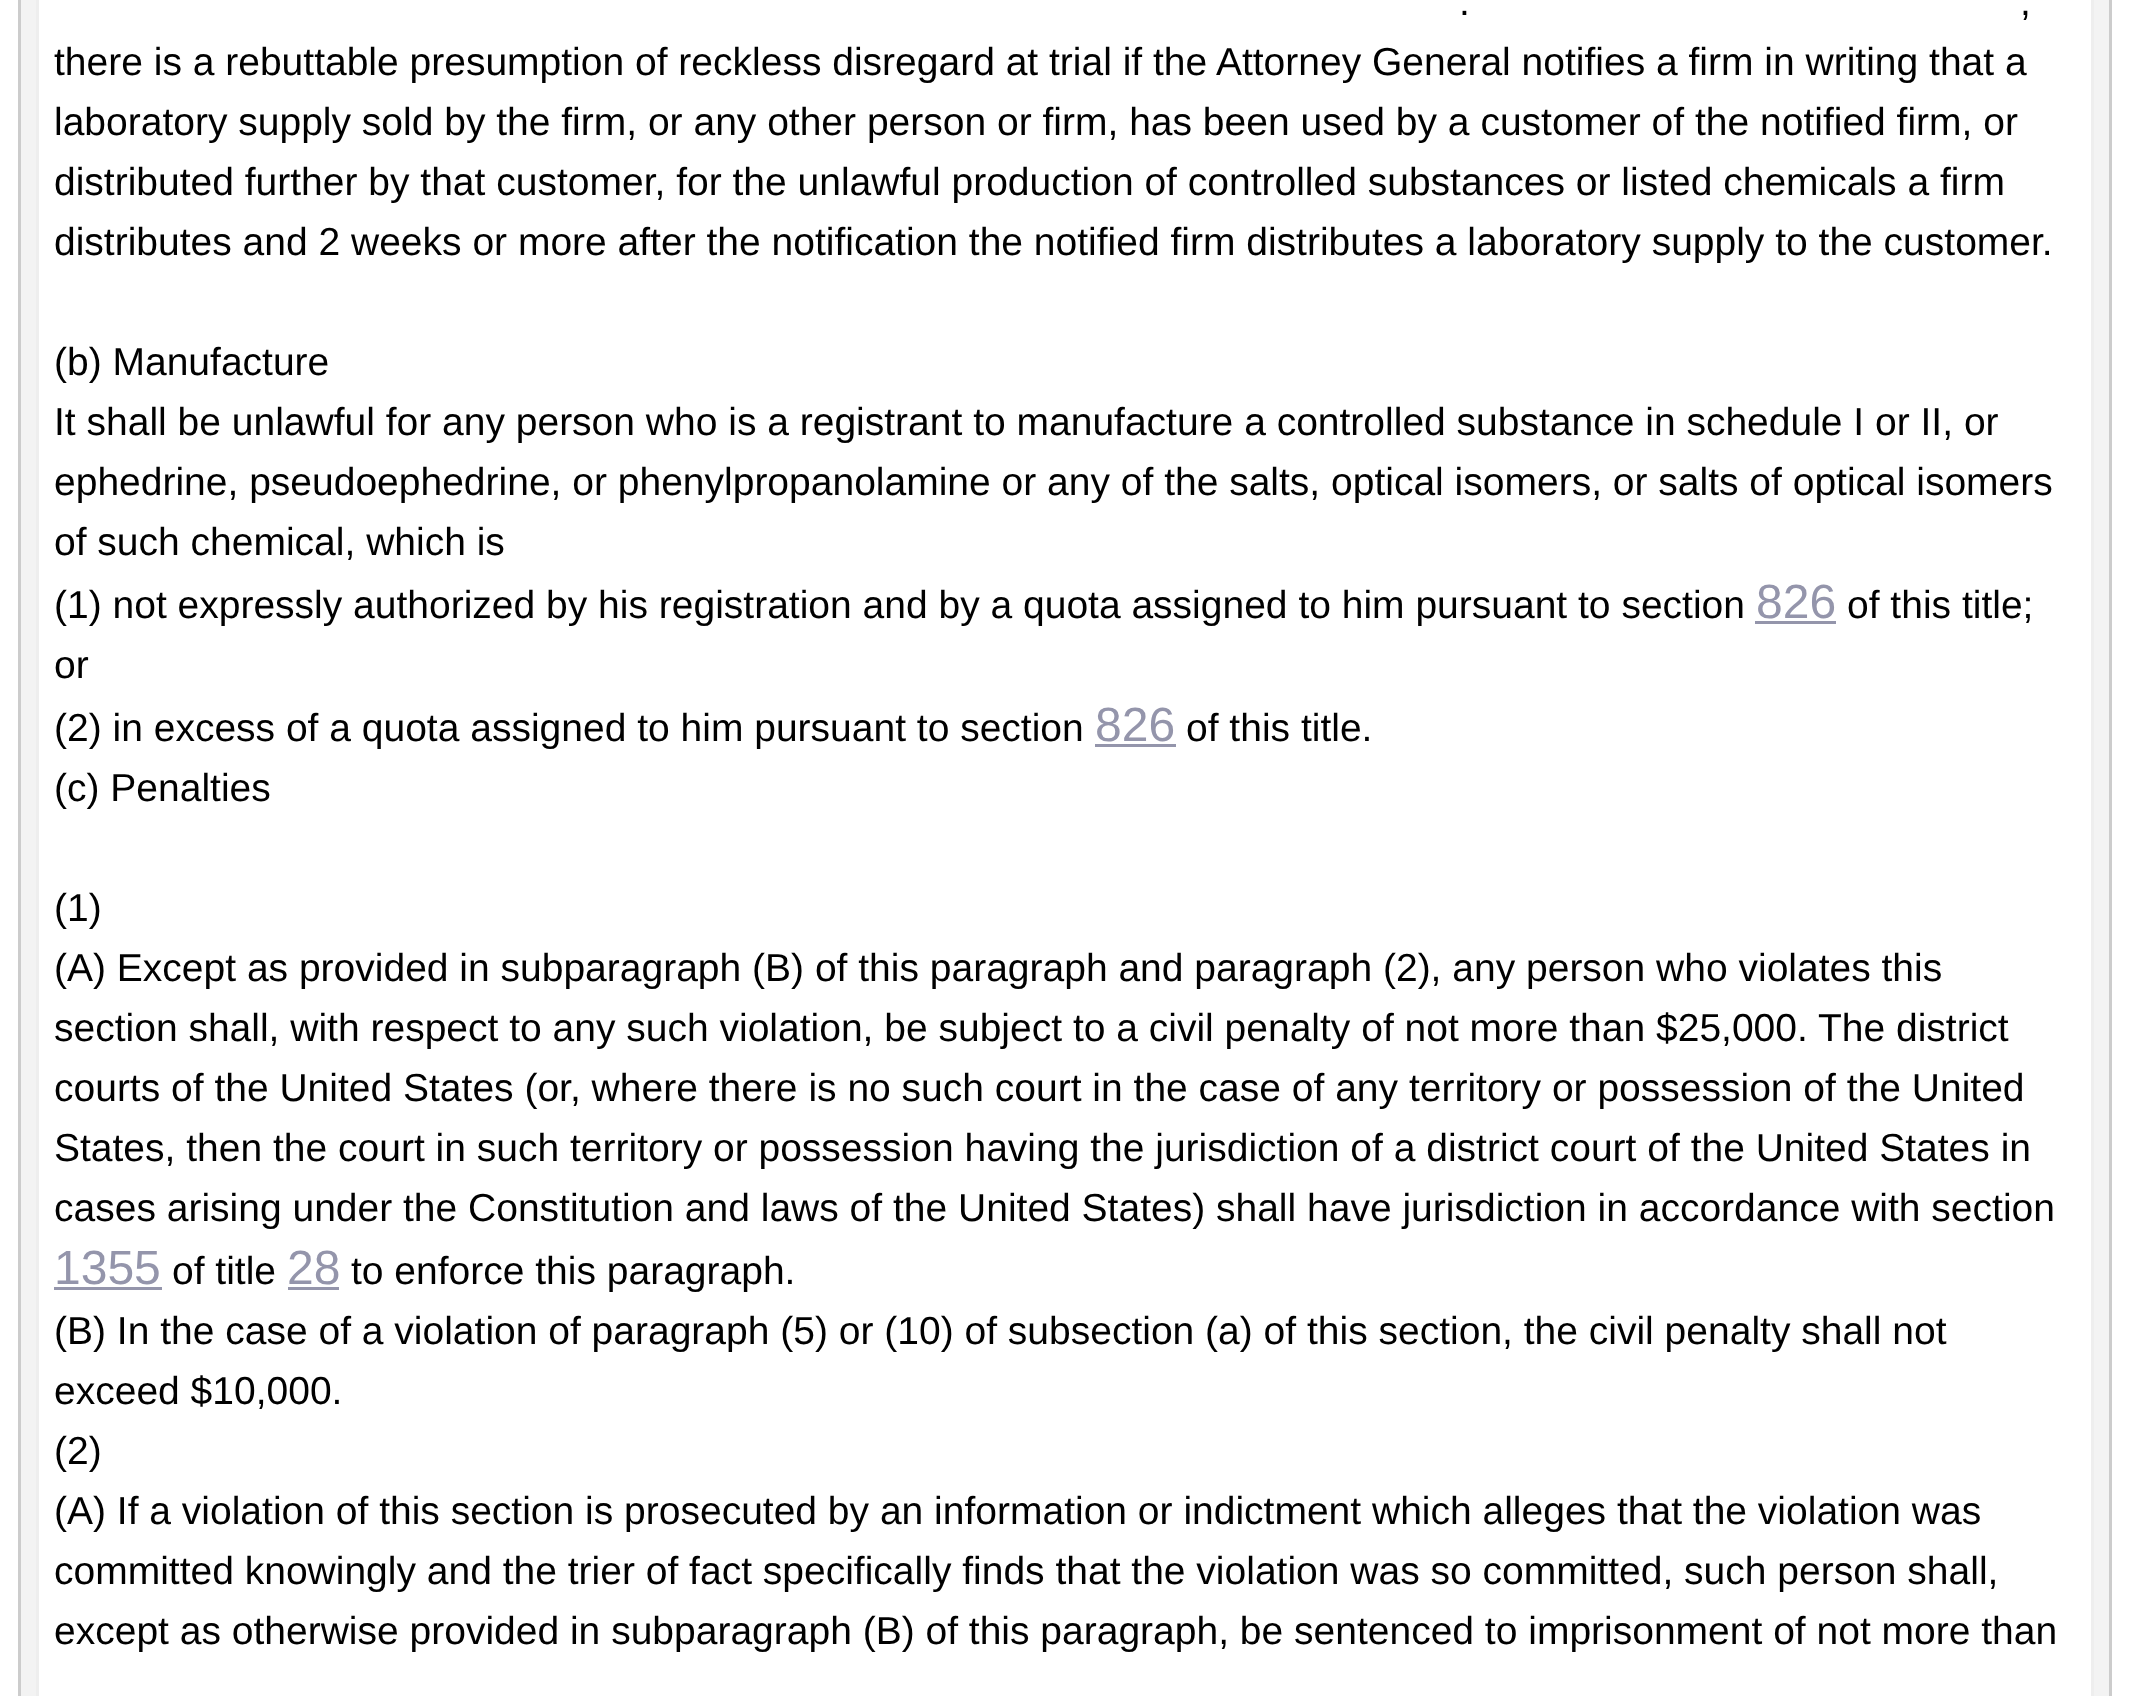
<!DOCTYPE html>
<meta charset="utf-8">
<style>body { margin: 0 } canvas { display: block }</style>
<canvas id="canvas" width="2129" height="1696"></canvas>
<script>
window.onload = function () {
	const canvas = document.getElementById("canvas");
	const ctx = canvas.getContext("2d");
	ctx.miterLimit = 4;
	ctx.fontKerning = "normal";
	function txt(s, x, y) {
		ctx.fillText(s, x, y);
	}
	function fill(x, y, w, h) {
		ctx.fillRect(x, y, w, h);
	}

	ctx.fillStyle = "#FFFFFF";
	fill(0, 0, 2129, 1696);
	ctx.fillStyle = "#F3F3F3";
	fill(21, 0, 2088, 1696);
	ctx.fillStyle = "#CCCCCC";
	fill(2109, 0, 3, 1696);
	fill(18, 0, 3, 1696);
	ctx.fillStyle = "#FFFFFF";
	ctx.beginPath();
	ctx.rect(37.5, -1.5, 2055, 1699);
	ctx.fill();
	ctx.strokeStyle = "#EEEEEE";
	ctx.lineWidth = 3;
	ctx.stroke();
	ctx.fillStyle = "#9495AB";
	fill(1755, 621, 81, 3);
	fill(1095, 744, 81, 3);
	fill(54, 1287, 108, 3);
	fill(288, 1287, 51, 3);
	ctx.font = "39px Liberation Sans";
	ctx.fillStyle = "#000000";
	txt(".", 1459, 15);
	txt(",", 2020, 15);
	txt("there is a rebuttable presumption of reckless disregard at trial if the Attorney General notifies a firm in writing that a", 54, 75);
	txt("laboratory supply sold by the firm, or any other person or firm, has been used by a customer of the notified firm, or", 54, 135);
	txt("distributed further by that customer, for the unlawful production of controlled substances or listed chemicals a firm", 54, 195);
	txt("distributes and 2 weeks or more after the notification the notified firm distributes a laboratory supply to the customer.", 54, 255);
	txt("(b) Manufacture", 54, 375);
	txt("It shall be unlawful for any person who is a registrant to manufacture a controlled substance in schedule I or II, or", 54, 435);
	txt("ephedrine, pseudoephedrine, or phenylpropanolamine or any of the salts, optical isomers, or salts of optical isomers", 54, 495);
	txt("of such chemical, which is", 54, 555);
	txt("(1) not expressly authorized by his registration and by a quota assigned to him pursuant to section", 54, 618);
	ctx.font = "48px Liberation Sans";
	ctx.fillStyle = "#9495AB";
	txt("826", 1756, 618);
	ctx.font = "39px Liberation Sans";
	ctx.fillStyle = "#000000";
	txt("of this title;", 1847, 618);
	txt("or", 54, 678);
	txt("(2) in excess of a quota assigned to him pursuant to section", 54, 741);
	ctx.font = "48px Liberation Sans";
	ctx.fillStyle = "#9495AB";
	txt("826", 1095, 741);
	ctx.font = "39px Liberation Sans";
	ctx.fillStyle = "#000000";
	txt("of this title.", 1186, 741);
	txt("(c) Penalties", 54, 801);
	txt("(1)", 54, 921);
	txt("(A) Except as provided in subparagraph (B) of this paragraph and paragraph (2), any person who violates this", 54, 981);
	txt("section shall, with respect to any such violation, be subject to a civil penalty of not more than $25,000. The district", 54, 1041);
	txt("courts of the United States (or, where there is no such court in the case of any territory or possession of the United", 54, 1101);
	txt("States, then the court in such territory or possession having the jurisdiction of a district court of the United States in", 54, 1161);
	txt("cases arising under the Constitution and laws of the United States) shall have jurisdiction in accordance with section", 54, 1221);
	ctx.font = "48px Liberation Sans";
	ctx.fillStyle = "#9495AB";
	txt("1355", 54, 1284);
	ctx.font = "39px Liberation Sans";
	ctx.fillStyle = "#000000";
	txt("of title", 172, 1284);
	ctx.font = "48px Liberation Sans";
	ctx.fillStyle = "#9495AB";
	txt("28", 287, 1284);
	ctx.font = "39px Liberation Sans";
	ctx.fillStyle = "#000000";
	txt("to enforce this paragraph.", 351, 1284);
	txt("(B) In the case of a violation of paragraph (5) or (10) of subsection (a) of this section, the civil penalty shall not", 54, 1344);
	txt("exceed $10,000.", 54, 1404);
	txt("(2)", 54, 1464);
	txt("(A) If a violation of this section is prosecuted by an information or indictment which alleges that the violation was", 54, 1524);
	txt("committed knowingly and the trier of fact specifically finds that the violation was so committed, such person shall,", 54, 1584);
	txt("except as otherwise provided in subparagraph (B) of this paragraph, be sentenced to imprisonment of not more than", 54, 1644);
};
</script>
